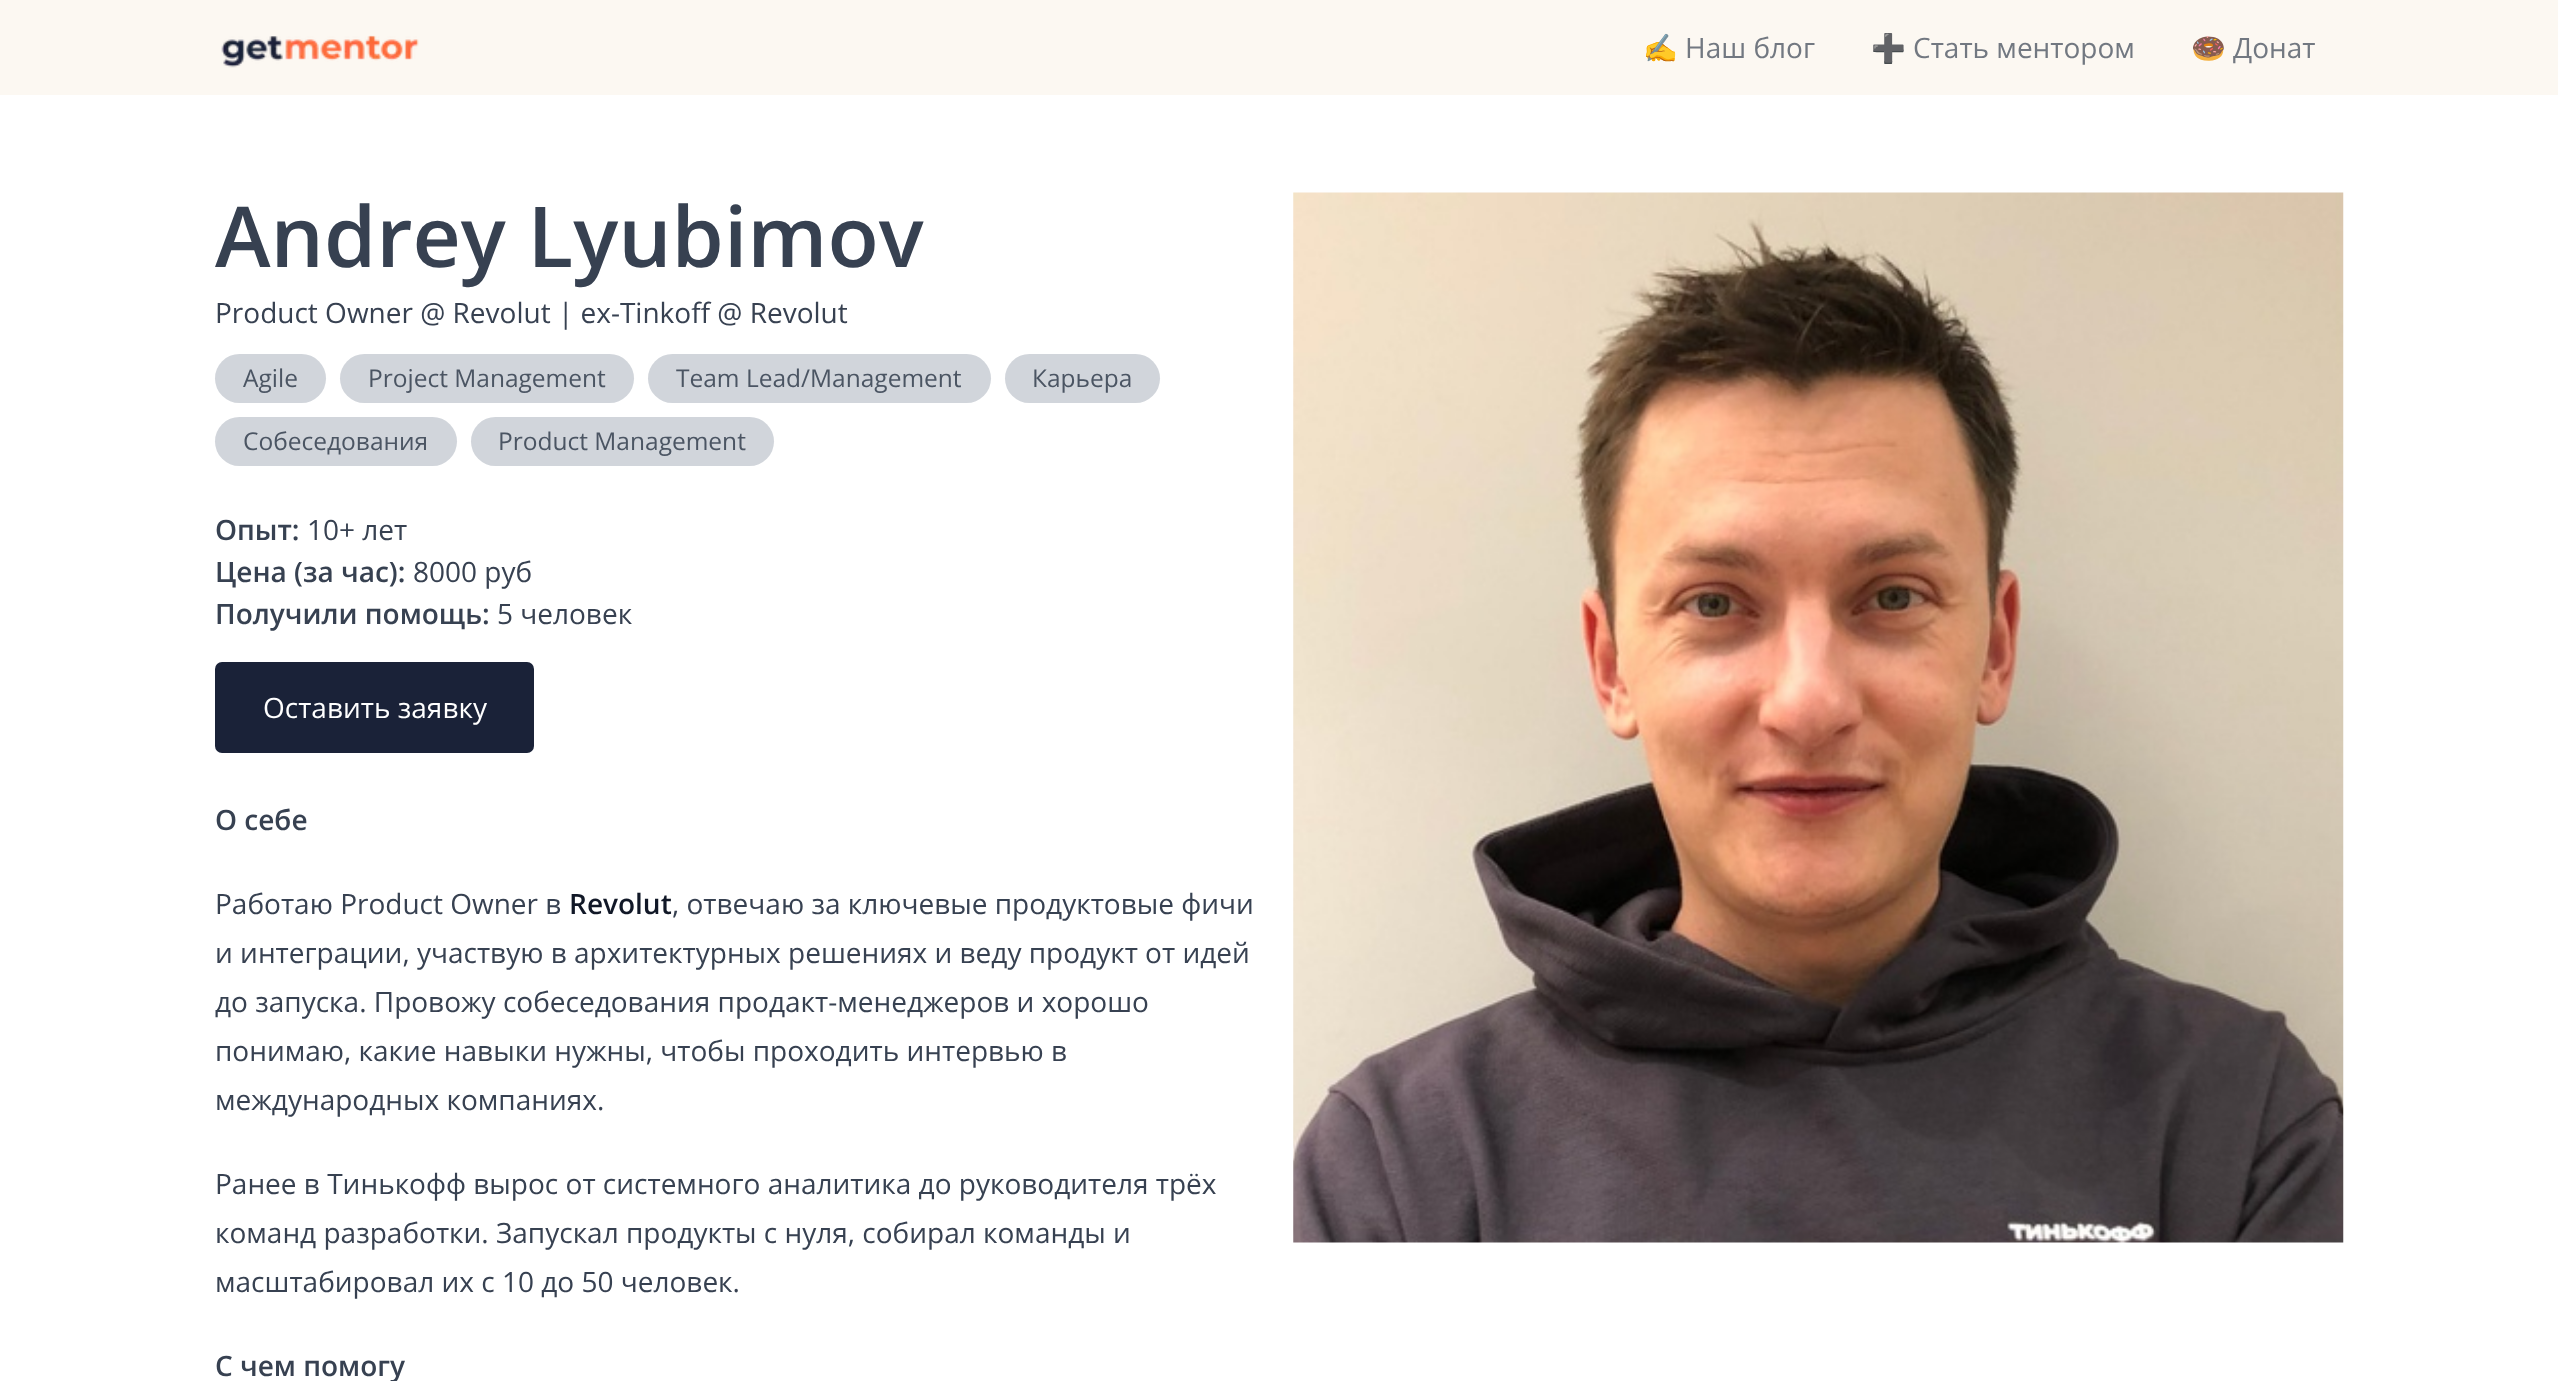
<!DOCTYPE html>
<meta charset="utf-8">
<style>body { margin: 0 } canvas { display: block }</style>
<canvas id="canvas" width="2558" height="1381"></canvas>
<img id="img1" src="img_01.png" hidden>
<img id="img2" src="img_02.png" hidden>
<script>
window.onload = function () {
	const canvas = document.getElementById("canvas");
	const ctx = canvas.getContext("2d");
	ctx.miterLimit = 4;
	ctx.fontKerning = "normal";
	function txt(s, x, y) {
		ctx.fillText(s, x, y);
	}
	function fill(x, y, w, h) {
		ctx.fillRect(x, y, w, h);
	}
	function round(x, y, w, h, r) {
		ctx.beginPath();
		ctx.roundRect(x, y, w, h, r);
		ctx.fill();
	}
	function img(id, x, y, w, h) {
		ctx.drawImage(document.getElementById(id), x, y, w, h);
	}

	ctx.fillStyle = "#FFFFFF";
	fill(0, 0, 2558, 1381);
	ctx.fillStyle = "#FCF8F2";
	fill(0, 0, 2558, 95);
	img("img1", 221, 35, 198, 33);
	ctx.fillStyle = "#D1D5DB";
	round(215, 354, 111, 49, 24.5);
	round(340, 354, 294, 49, 24.5);
	round(648, 354, 343, 49, 24.5);
	round(1005, 354, 155, 49, 24.5);
	round(215, 417, 242, 49, 24.5);
	round(471, 417, 303, 49, 24.5);
	ctx.fillStyle = "#1A2238";
	round(215, 662, 319, 91, 7);
	img("img2", 1293, 192, 1051, 1051);
	ctx.font = "28px Noto Color Emoji";
	ctx.fillStyle = "#727881";
	txt("✍️", 1643, 58);
	ctx.font = "28px Open Sans";
	txt("Наш блог", 1685, 58);
	ctx.font = "28px Noto Color Emoji";
	txt("➕", 1871, 58);
	ctx.font = "28px Open Sans";
	txt("Стать ментором", 1913, 58);
	ctx.font = "28px Noto Color Emoji";
	txt("🍩", 2191, 58);
	ctx.font = "28px Open Sans";
	txt("Донат", 2233, 58);
	ctx.font = "600 84px Open Sans";
	ctx.fillStyle = "#374151";
	txt("Andrey Lyubimov", 215, 267);
	ctx.font = "28px Open Sans";
	txt("Product Owner @ Revolut | ex-Tinkoff @ Revolut", 215, 323);
	ctx.font = "24.5px Open Sans";
	ctx.fillStyle = "#4B5563";
	txt("Agile", 243, 387);
	txt("Project Management", 368, 387);
	txt("Team Lead/Management", 676, 387);
	txt("Карьера", 1032, 387);
	txt("Собеседования", 243, 450);
	txt("Product Management", 498, 450);
	ctx.font = "600 28px Open Sans";
	ctx.fillStyle = "#374151";
	txt("Опыт:", 215, 540);
	ctx.font = "28px Open Sans";
	txt("10+ лет", 307, 540);
	ctx.font = "600 28px Open Sans";
	txt("Цена (за час):", 215, 582);
	ctx.font = "28px Open Sans";
	txt("8000 руб", 413, 582);
	ctx.font = "600 28px Open Sans";
	txt("Получили помощь:", 215, 624);
	ctx.font = "28px Open Sans";
	txt("5 человек", 497, 624);
	ctx.fillStyle = "#FFFFFF";
	txt("Оставить заявку", 263, 718);
	ctx.font = "600 28px Open Sans";
	ctx.fillStyle = "#374151";
	txt("О себе", 215, 830);
	ctx.font = "28px Open Sans";
	txt("Работаю Product Owner в", 215, 914);
	ctx.font = "600 28px Open Sans";
	ctx.fillStyle = "#111827";
	txt("Revolut", 569, 914);
	ctx.font = "28px Open Sans";
	ctx.fillStyle = "#374151";
	txt(", отвечаю за ключевые продуктовые фичи", 672, 914);
	txt("и интеграции, участвую в архитектурных решениях и веду продукт от идей", 215, 963);
	txt("до запуска. Провожу собеседования продакт-менеджеров и хорошо", 215, 1012);
	txt("понимаю, какие навыки нужны, чтобы проходить интервью в", 215, 1061);
	txt("международных компаниях.", 215, 1110);
	txt("Ранее в Тинькофф вырос от системного аналитика до руководителя трёх", 215, 1194);
	txt("команд разработки. Запускал продукты с нуля, собирал команды и", 215, 1243);
	txt("масштабировал их с 10 до 50 человек.", 215, 1292);
	ctx.font = "600 28px Open Sans";
	txt("С чем помогу", 215, 1376);
};
</script>
